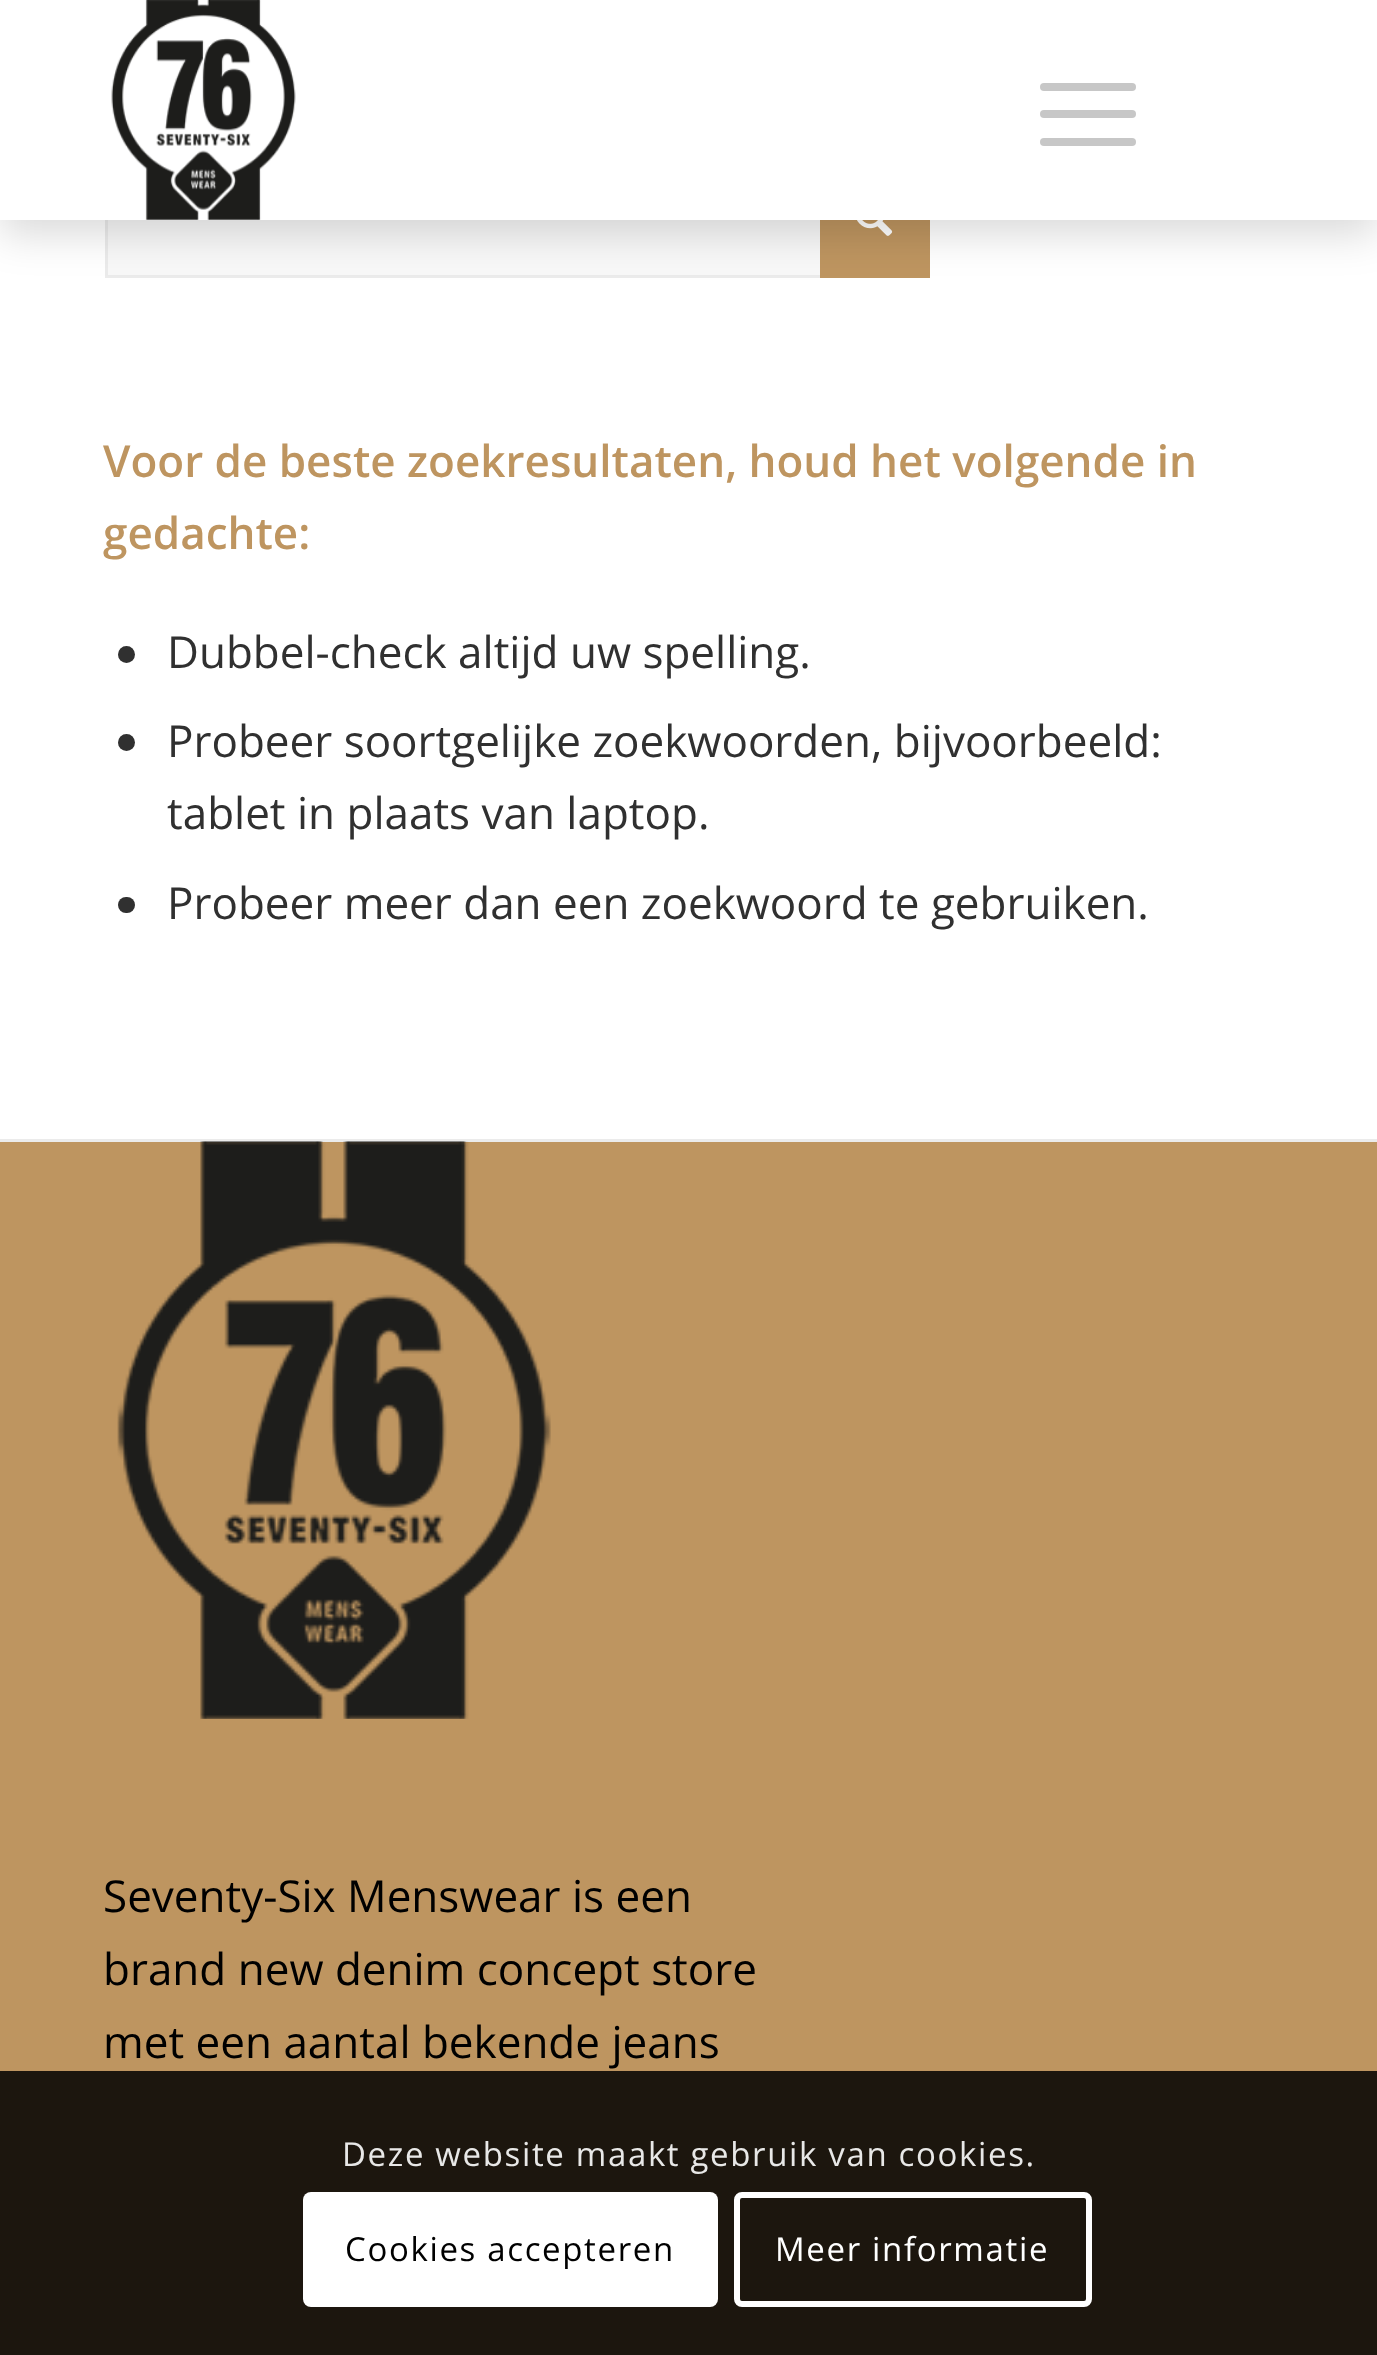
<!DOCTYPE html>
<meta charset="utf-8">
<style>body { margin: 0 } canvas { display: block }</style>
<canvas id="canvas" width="1377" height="2355"></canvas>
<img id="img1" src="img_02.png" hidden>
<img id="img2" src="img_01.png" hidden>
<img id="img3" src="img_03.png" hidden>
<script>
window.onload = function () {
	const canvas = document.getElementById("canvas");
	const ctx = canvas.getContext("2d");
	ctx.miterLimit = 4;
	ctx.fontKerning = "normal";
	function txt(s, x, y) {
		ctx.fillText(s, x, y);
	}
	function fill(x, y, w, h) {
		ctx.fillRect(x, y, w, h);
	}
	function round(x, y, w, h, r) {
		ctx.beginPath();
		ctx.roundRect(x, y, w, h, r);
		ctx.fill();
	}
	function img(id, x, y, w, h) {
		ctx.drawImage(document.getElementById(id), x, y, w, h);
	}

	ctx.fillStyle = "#FFFFFF";
	fill(0, 0, 1377, 2355);
	ctx.fillStyle = "#F8F8F8";
	fill(108, 220, 712, 55);
	ctx.strokeStyle = "#EBEBEB";
	ctx.lineWidth = 3;
	ctx.strokeRect(106.5, 163.5, 822, 113);
	ctx.fillStyle = "#BE9560";
	fill(820, 220, 110, 58);
	img("img1", 857, 220, 36, 16);
	ctx.fillStyle = "rgba(0, 0, 0, 0.15)";
	ctx.filter = "blur(20.5px)";
	ctx.beginPath();
	ctx.rect(0, 14, 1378, 220);
	ctx.fill();
	ctx.filter = "none";
	ctx.fillStyle = "#FFFFFF";
	fill(0, 0, 1377, 220);
	img("img2", 111, 0, 185, 220);
	ctx.fillStyle = "#C7C7C7";
	round(1040, 110, 96, 8, 4);
	round(1040, 83, 96, 8, 4);
	round(1040, 138, 96, 8, 4);
	ctx.fillStyle = "#303030";
	ctx.beginPath();
	ctx.arc(126.5, 654.5, 8.5, 0, Math.PI * 2);
	ctx.fill();
	ctx.beginPath();
	ctx.arc(126.5, 742.5, 8.5, 0, Math.PI * 2);
	ctx.fill();
	round(118, 897, 17, 16, 8);
	ctx.fillStyle = "#BE9560";
	fill(0, 1142, 1377, 1213);
	ctx.fillStyle = "#EBEBEB";
	fill(0, 1139, 1377, 3);
	img("img3", 117, 1141, 434, 578);
	ctx.fillStyle = "rgba(0, 0, 0, 0.85)";
	fill(0, 2071, 1377, 284);
	ctx.fillStyle = "#FFFFFF";
	round(303, 2192, 415, 115, 8);
	ctx.beginPath();
	ctx.roundRect(737, 2195, 352, 109, 5);
	ctx.strokeStyle = "#FFFFFF";
	ctx.lineWidth = 6;
	ctx.stroke();
	ctx.font = "600 44px Open Sans";
	ctx.fillStyle = "#BE9560";
	txt("Voor de beste zoekresultaten, houd het volgende in", 103, 477);
	txt("gedachte:", 103, 549);
	ctx.font = "44px Open Sans";
	ctx.fillStyle = "#303030";
	txt("Dubbel-check altijd uw spelling.", 167, 668);
	txt("Probeer soortgelijke zoekwoorden, bijvoorbeeld:", 167, 757);
	txt("tablet in plaats van laptop.", 167, 829);
	txt("Probeer meer dan een zoekwoord te gebruiken.", 167, 919);
	ctx.fillStyle = "#000000";
	txt("Seventy-Six Menswear is een", 103, 1912);
	txt("brand new denim concept store", 103, 1985);
	txt("met een aantal bekende jeans", 103, 2058);
	ctx.letterSpacing = "1.65px";
	ctx.font = "33px Open Sans";
	ctx.fillStyle = "#E8E8E7";
	txt("Deze website maakt gebruik van cookies.", 342, 2166);
	ctx.fillStyle = "#000000";
	txt("Cookies accepteren", 345, 2261);
	ctx.fillStyle = "#FFFFFF";
	txt("Meer informatie", 775, 2261);
};
</script>
